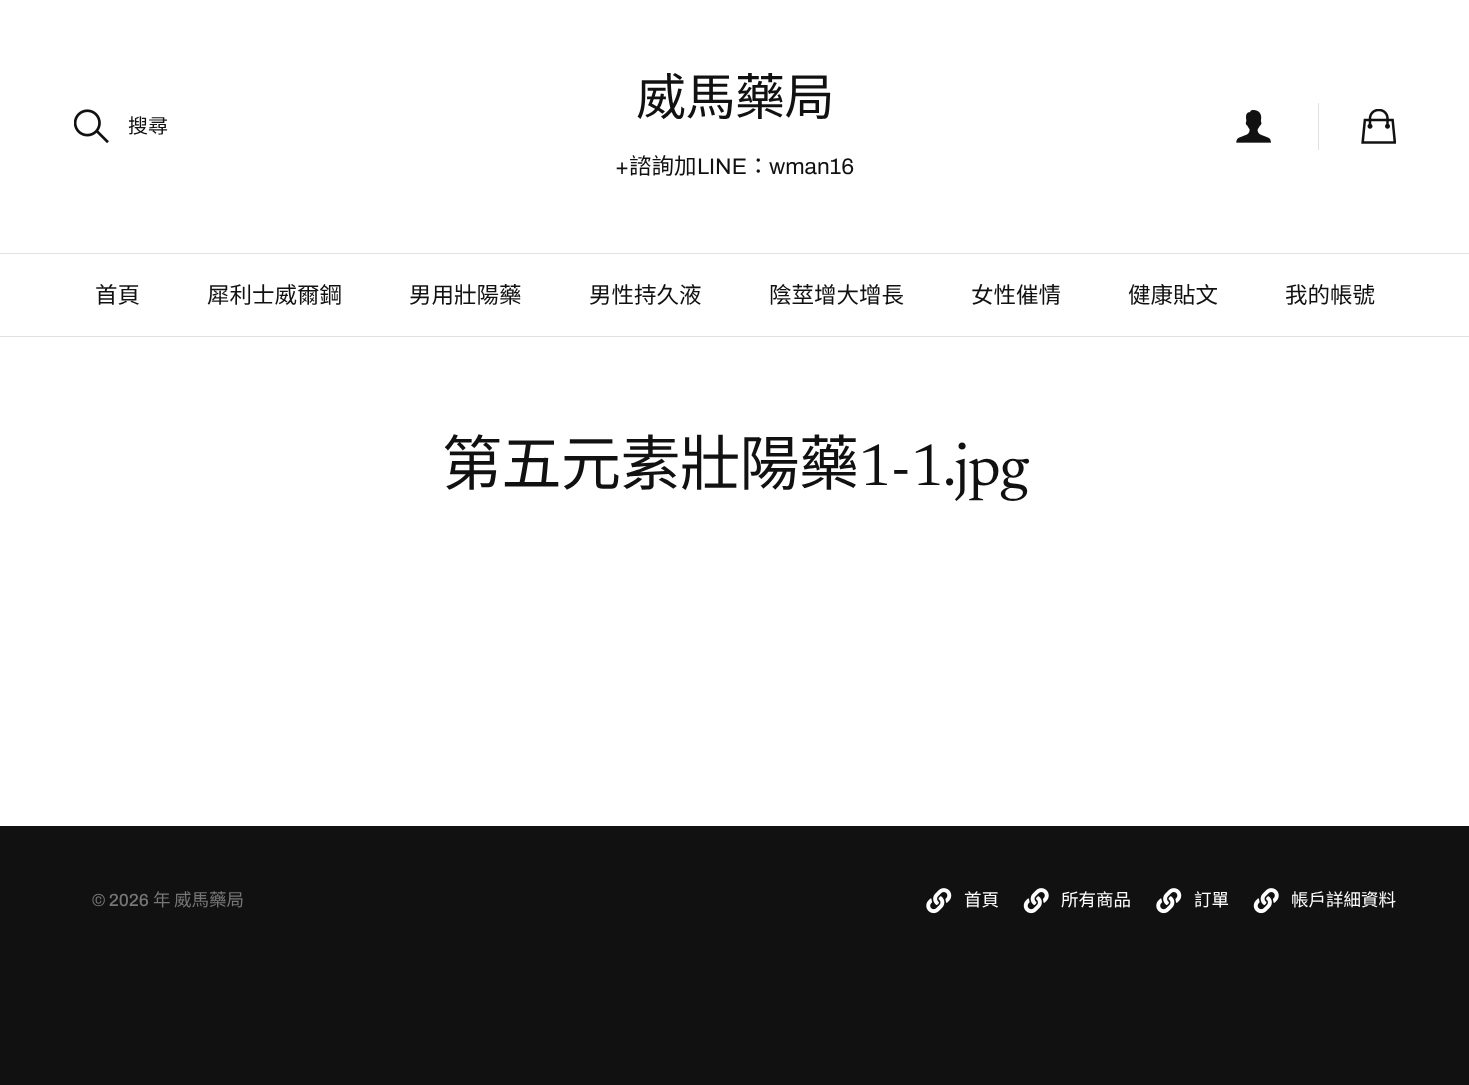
<!DOCTYPE html>
<meta charset="utf-8">
<style>body { margin: 0 } canvas { display: block }</style>
<canvas id="canvas" width="1469" height="1085"></canvas>
<img id="img1" src="img_01.png" hidden>
<img id="img2" src="img_02.png" hidden>
<img id="img3" src="img_03.png" hidden>
<img id="img4" src="img_04.png" hidden>
<img id="img5" src="img_05.png" hidden>
<script>
window.onload = function () {
	const canvas = document.getElementById("canvas");
	const ctx = canvas.getContext("2d");
	ctx.miterLimit = 4;
	ctx.fontKerning = "normal";
	function txt(s, x, y) {
		ctx.fillText(s, x, y);
	}
	function fill(x, y, w, h) {
		ctx.fillRect(x, y, w, h);
	}
	function img(id, x, y, w, h) {
		ctx.drawImage(document.getElementById(id), x, y, w, h);
	}

	ctx.fillStyle = "#111111";
	fill(0, 0, 1469, 1085);
	ctx.fillStyle = "#FFFFFF";
	fill(0, 0, 1469, 826);
	ctx.fillStyle = "#E1E1E5";
	fill(0, 336, 1469, 1);
	img("img1", 74, 109, 35, 35);
	img("img2", 1236, 110, 35, 33);
	fill(1318, 103, 1, 47);
	img("img3", 1361, 109, 35, 35);
	fill(0, 253, 1469, 1);
	img("img4", 926, 888, 26, 26);
	img("img5", 1023, 888, 26, 26);
	img("img4", 1156, 888, 26, 26);
	img("img5", 1253, 888, 26, 26);
	ctx.font = "20px Noto Sans CJK TC";
	ctx.fillStyle = "#111111";
	txt("搜尋", 128, 133);
	ctx.letterSpacing = "-0.5px";
	ctx.font = "50px Noto Sans CJK TC";
	txt("威馬藥局", 636, 115);
	ctx.letterSpacing = "0px";
	ctx.font = "22.5px Archivo";
	txt("+", 615, 174);
	ctx.font = "22.5px Noto Sans CJK TC";
	txt("諮詢加", 629, 174);
	ctx.font = "22.5px Archivo";
	txt("LINE", 697, 174);
	ctx.font = "22.5px Noto Sans CJK TC";
	txt("：", 747, 174);
	ctx.font = "22.5px Archivo";
	txt("wman16", 769, 174);
	ctx.font = "22.5px Noto Sans CJK TC";
	txt("首頁", 95, 303);
	txt("犀利士威爾鋼", 207, 303);
	txt("男用壯陽藥", 409, 303);
	txt("男性持久液", 589, 303);
	txt("陰莖增大增長", 769, 303);
	txt("女性催情", 971, 303);
	txt("健康貼文", 1128, 303);
	txt("我的帳號", 1285, 303);
	ctx.letterSpacing = "-0.5px";
	ctx.font = "60px Noto Sans CJK TC";
	txt("第五元素壯陽藥", 442, 485);
	ctx.font = "60px Newsreader";
	txt("1-1.jpg", 858, 485);
	ctx.letterSpacing = "0px";
	ctx.font = "500 17.5px Archivo";
	ctx.fillStyle = "#767676";
	txt("© 2026", 92, 906);
	ctx.font = "17.5px Noto Sans CJK TC";
	txt("年", 153, 906);
	txt("威馬藥局", 174, 906);
	ctx.fillStyle = "#FFFFFF";
	txt("首頁", 964, 906);
	txt("所有商品", 1061, 906);
	txt("訂單", 1194, 906);
	txt("帳戶詳細資料", 1291, 906);
};
</script>
